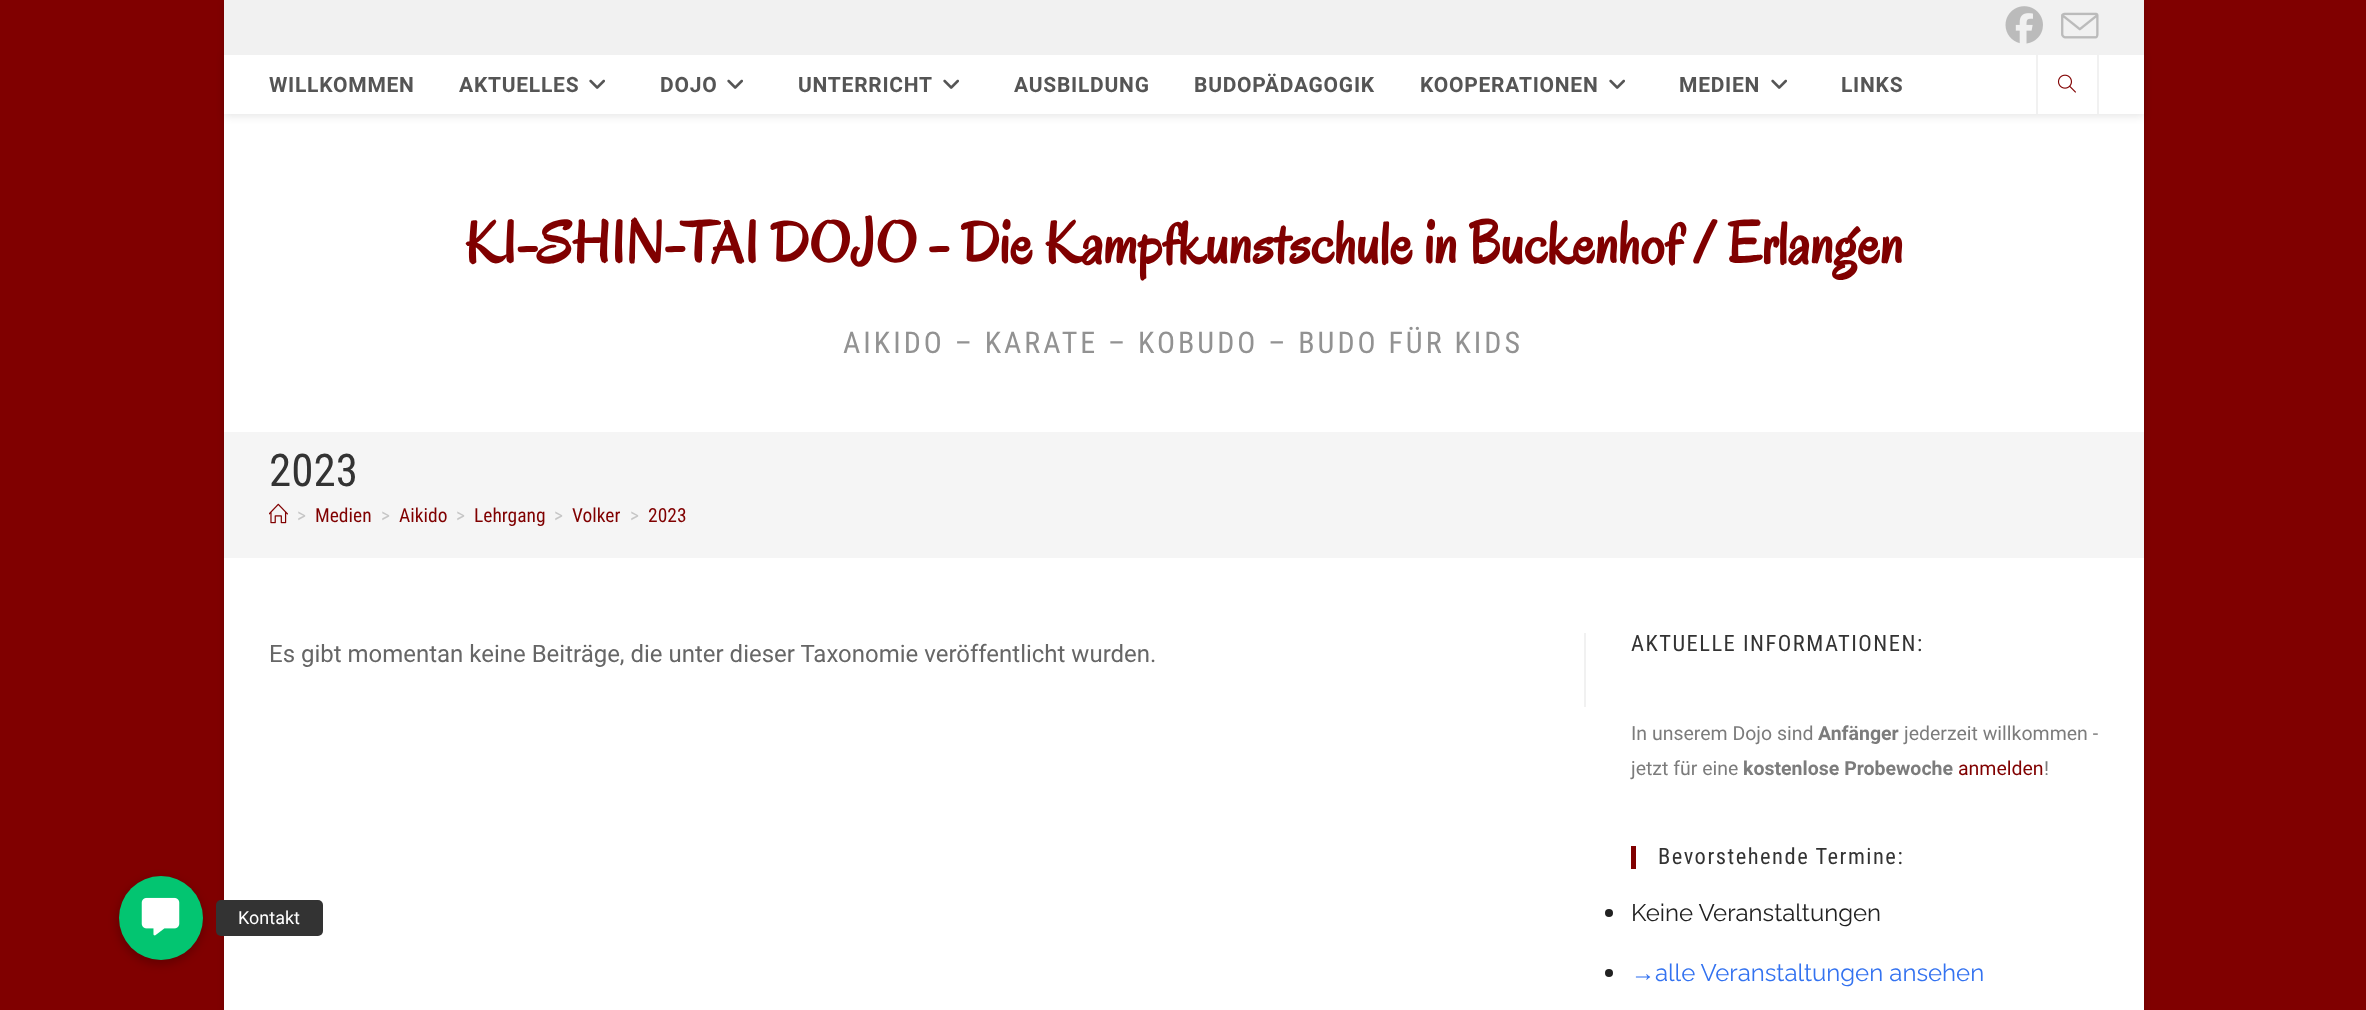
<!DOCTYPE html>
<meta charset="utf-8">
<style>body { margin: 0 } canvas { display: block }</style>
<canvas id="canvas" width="2366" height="1010"></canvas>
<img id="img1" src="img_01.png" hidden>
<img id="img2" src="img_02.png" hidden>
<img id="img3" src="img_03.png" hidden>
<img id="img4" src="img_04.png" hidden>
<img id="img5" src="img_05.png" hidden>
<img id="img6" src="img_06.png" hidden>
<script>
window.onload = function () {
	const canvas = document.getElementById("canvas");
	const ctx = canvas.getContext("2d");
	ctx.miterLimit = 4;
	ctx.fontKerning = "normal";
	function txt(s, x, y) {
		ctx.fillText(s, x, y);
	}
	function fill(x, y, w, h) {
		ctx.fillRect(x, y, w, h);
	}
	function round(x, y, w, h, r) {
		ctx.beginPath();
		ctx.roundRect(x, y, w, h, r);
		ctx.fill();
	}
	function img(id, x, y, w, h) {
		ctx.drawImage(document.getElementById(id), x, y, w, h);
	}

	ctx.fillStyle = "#800000";
	fill(0, 0, 2366, 1010);
	ctx.fillStyle = "rgba(0, 0, 0, 0.15)";
	ctx.filter = "blur(3px)";
	ctx.beginPath();
	ctx.rect(224, 2, 1920, 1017);
	ctx.fill();
	ctx.filter = "none";
	ctx.fillStyle = "#FFFFFF";
	fill(224, 114, 1920, 896);
	ctx.fillStyle = "rgba(0, 0, 0, 0.1)";
	ctx.filter = "blur(4px)";
	ctx.beginPath();
	ctx.rect(224, 56, 1920, 60);
	ctx.fill();
	ctx.filter = "none";
	ctx.fillStyle = "#FFFFFF";
	fill(224, 55, 1920, 59);
	ctx.fillStyle = "#F1F1F1";
	fill(2097, 54, 2, 60);
	fill(2036, 54, 2, 60);
	fill(224, 0, 1920, 55);
	img("img1", 2005, 6, 38, 38);
	img("img2", 2061, 12, 38, 27);
	img("img3", 589, 79, 16, 10);
	img("img3", 727, 79, 16, 10);
	img("img3", 943, 79, 16, 10);
	img("img3", 1609, 79, 16, 10);
	img("img3", 1771, 79, 16, 10);
	img("img4", 2057, 74, 19, 19);
	ctx.fillStyle = "#F5F5F5";
	fill(224, 432, 1920, 126);
	img("img5", 269, 503, 19, 21);
	ctx.fillStyle = "#F1F1F1";
	fill(1584, 633, 2, 74);
	ctx.fillStyle = "#800000";
	fill(1631, 846, 5, 23);
	ctx.fillStyle = "#212121";
	ctx.beginPath();
	ctx.arc(1609, 913, 4, 0, Math.PI * 2);
	ctx.fill();
	ctx.beginPath();
	ctx.arc(1609, 973, 4, 0, Math.PI * 2);
	ctx.fill();
	ctx.fillStyle = "rgba(0, 0, 0, 0.2)";
	ctx.filter = "blur(4.5px)";
	ctx.beginPath();
	ctx.roundRect(117, 878, 87, 87, 43.5);
	ctx.fill();
	ctx.filter = "none";
	ctx.fillStyle = "#03C571";
	ctx.beginPath();
	ctx.arc(161, 918, 42, 0, Math.PI * 2);
	ctx.fill();
	img("img6", 141, 897, 39, 39);
	ctx.fillStyle = "#333333";
	round(216, 900, 107, 36, 5);
	ctx.letterSpacing = "0.75px";
	ctx.font = "bold 21px Roboto";
	ctx.fillStyle = "#555555";
	txt("WILLKOMMEN", 269, 92);
	txt("AKTUELLES", 459, 92);
	txt("DOJO", 660, 92);
	txt("UNTERRICHT", 798, 92);
	txt("AUSBILDUNG", 1014, 92);
	txt("BUDOPÄDAGOGIK", 1194, 92);
	txt("KOOPERATIONEN", 1420, 92);
	txt("MEDIEN", 1679, 92);
	txt("LINKS", 1841, 92);
	ctx.letterSpacing = "0px";
	ctx.font = "bold 60px Oregano";
	ctx.fillStyle = "#800000";
	txt("KI-SHIN-TAI DOJO - Die Kampfkunstschule in Buckenhof / Erlangen", 464, 263);
	ctx.letterSpacing = "3px";
	ctx.font = "30px Roboto Condensed";
	ctx.fillStyle = "#929292";
	txt("AIKIDO – KARATE – KOBUDO – BUDO FÜR KIDS", 843, 353);
	ctx.letterSpacing = "0px";
	ctx.font = "45px Roboto Condensed";
	ctx.fillStyle = "#333333";
	txt("2023", 269, 486);
	ctx.font = "19.5px Roboto Condensed";
	ctx.fillStyle = "#C6C6C6";
	txt(">", 297, 522);
	ctx.fillStyle = "#800000";
	txt("Medien", 315, 522);
	ctx.fillStyle = "#C6C6C6";
	txt(">", 381, 522);
	ctx.fillStyle = "#800000";
	txt("Aikido", 399, 522);
	ctx.fillStyle = "#C6C6C6";
	txt(">", 456, 522);
	ctx.fillStyle = "#800000";
	txt("Lehrgang", 474, 522);
	ctx.fillStyle = "#C6C6C6";
	txt(">", 554, 522);
	ctx.fillStyle = "#800000";
	txt("Volker", 572, 522);
	ctx.fillStyle = "#C6C6C6";
	txt(">", 630, 522);
	ctx.fillStyle = "#800000";
	txt("2023", 648, 522);
	ctx.font = "24px Roboto";
	ctx.fillStyle = "#666666";
	txt("Es gibt momentan keine Beiträge, die unter dieser Taxonomie veröffentlicht wurden.", 269, 662);
	ctx.letterSpacing = "1.5px";
	ctx.font = "22.5px Roboto Condensed";
	ctx.fillStyle = "#333333";
	txt("AKTUELLE INFORMATIONEN:", 1631, 651);
	ctx.letterSpacing = "0px";
	ctx.font = "19.5px Roboto";
	ctx.fillStyle = "#7C7C7C";
	txt("In unserem Dojo sind", 1631, 740);
	ctx.font = "bold 19.5px Roboto";
	txt("Anfänger", 1818, 740);
	ctx.font = "19.5px Roboto";
	txt("jederzeit willkommen -", 1904, 740);
	txt("jetzt für eine", 1631, 775);
	ctx.font = "bold 19.5px Roboto";
	txt("kostenlose Probewoche", 1743, 775);
	ctx.font = "19.5px Roboto";
	ctx.fillStyle = "#800000";
	txt("anmelden", 1958, 775);
	ctx.fillStyle = "#7C7C7C";
	txt("!", 2044, 775);
	ctx.letterSpacing = "1.5px";
	ctx.font = "22.5px Roboto Condensed";
	ctx.fillStyle = "#333333";
	txt("Bevorstehende Termine:", 1658, 864);
	ctx.letterSpacing = "0px";
	ctx.font = "24px Raleway";
	ctx.fillStyle = "#212121";
	txt("Keine Veranstaltungen", 1631, 921);
	ctx.font = "24px Liberation Sans";
	ctx.fillStyle = "#3372F0";
	txt("→", 1631, 981);
	ctx.font = "24px Raleway";
	txt("alle Veranstaltungen ansehen", 1655, 981);
	ctx.font = "18px Roboto";
	ctx.fillStyle = "#FFFFFF";
	txt("Kontakt", 238, 924);
};
</script>
